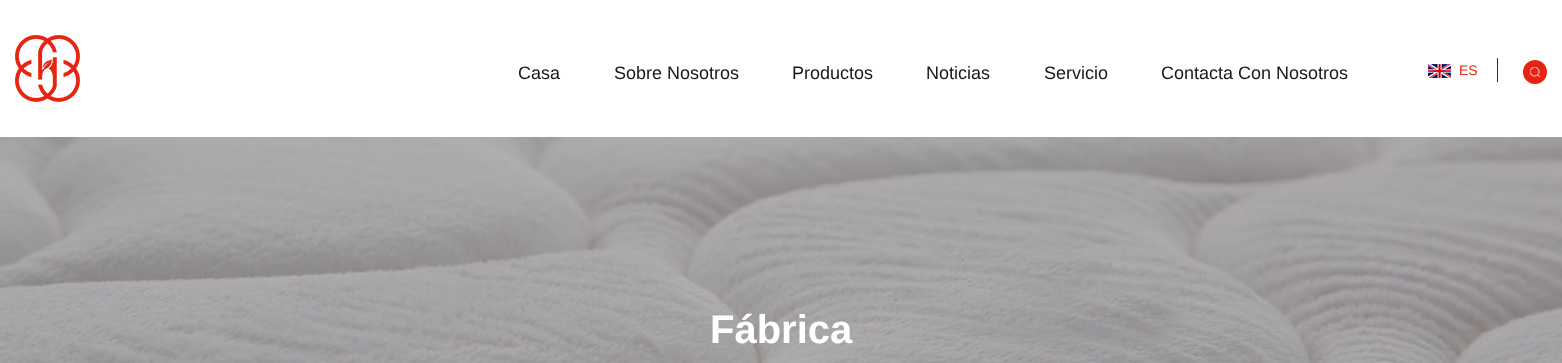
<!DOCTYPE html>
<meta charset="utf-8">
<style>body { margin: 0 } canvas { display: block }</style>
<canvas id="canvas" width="1562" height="363"></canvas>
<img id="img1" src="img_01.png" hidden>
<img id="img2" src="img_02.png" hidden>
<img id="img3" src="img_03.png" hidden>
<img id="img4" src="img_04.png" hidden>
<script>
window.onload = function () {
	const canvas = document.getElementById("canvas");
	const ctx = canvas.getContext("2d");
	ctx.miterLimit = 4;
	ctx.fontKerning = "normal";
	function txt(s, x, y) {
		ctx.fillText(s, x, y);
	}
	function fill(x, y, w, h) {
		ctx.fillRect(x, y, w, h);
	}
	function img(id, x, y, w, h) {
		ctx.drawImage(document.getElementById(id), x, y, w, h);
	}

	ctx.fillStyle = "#FFFFFF";
	fill(0, 0, 1562, 363);
	img("img1", 15, 35, 65, 67);
	img("img2", 1428, 64, 23, 14);
	ctx.fillStyle = "#2D2D2D";
	fill(1497, 58, 1, 24);
	ctx.fillStyle = "#E72311";
	ctx.beginPath();
	ctx.arc(1535, 72, 12, 0, Math.PI * 2);
	ctx.fill();
	img("img3", 1530, 67, 10, 10);
	img("img4", 0, 137, 1562, 226);
	ctx.font = "18px Liberation Sans";
	ctx.fillStyle = "#181818";
	txt("Casa", 518, 79);
	txt("Sobre Nosotros", 614, 79);
	txt("Productos", 792, 79);
	txt("Noticias", 926, 79);
	txt("Servicio", 1044, 79);
	txt("Contacta Con Nosotros", 1161, 79);
	ctx.font = "14px Liberation Sans";
	ctx.fillStyle = "#E72311";
	txt("ES", 1459, 75);
	ctx.font = "bold 40px Liberation Sans";
	ctx.fillStyle = "#FFFFFF";
	txt("Fábrica", 710, 343);
};
</script>
